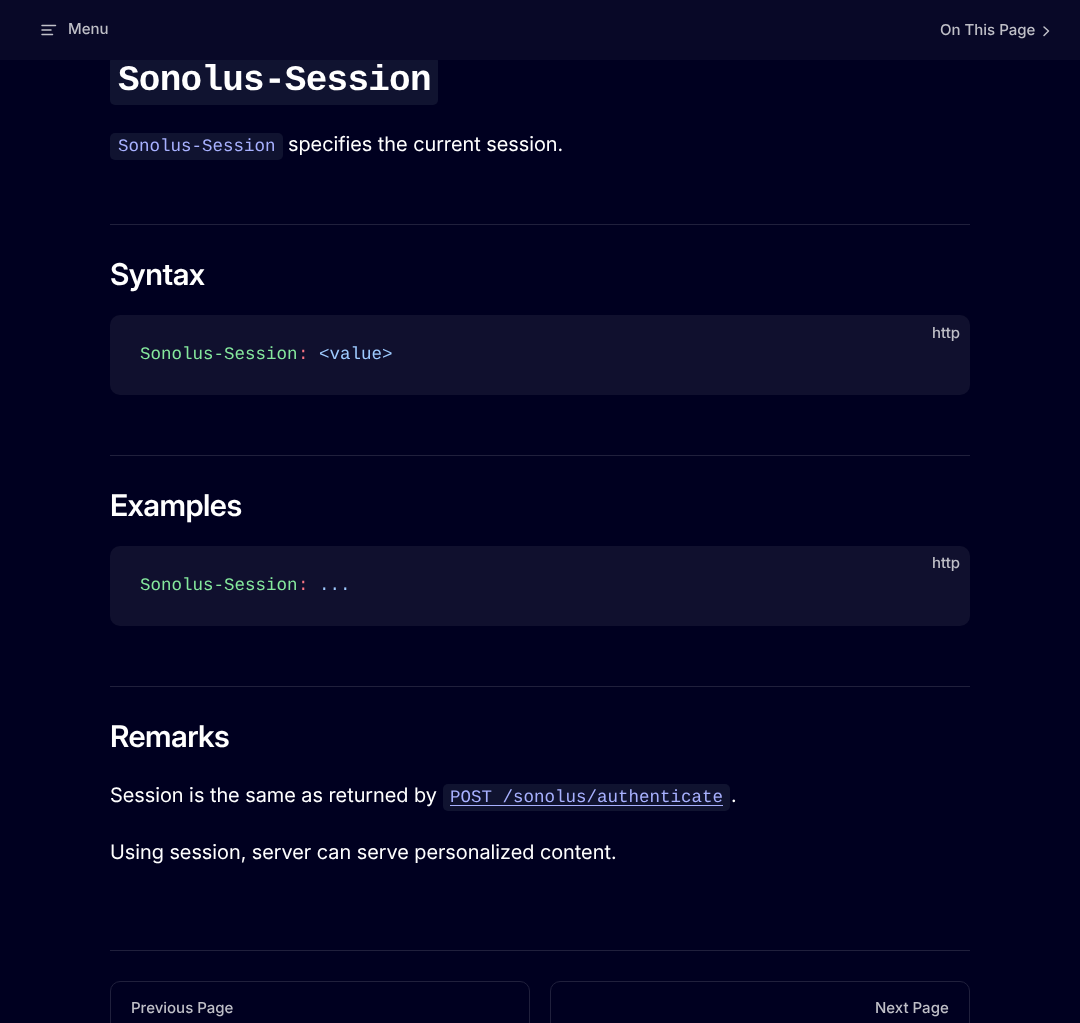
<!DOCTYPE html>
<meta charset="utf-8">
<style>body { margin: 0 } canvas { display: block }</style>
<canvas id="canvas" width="1080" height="1023"></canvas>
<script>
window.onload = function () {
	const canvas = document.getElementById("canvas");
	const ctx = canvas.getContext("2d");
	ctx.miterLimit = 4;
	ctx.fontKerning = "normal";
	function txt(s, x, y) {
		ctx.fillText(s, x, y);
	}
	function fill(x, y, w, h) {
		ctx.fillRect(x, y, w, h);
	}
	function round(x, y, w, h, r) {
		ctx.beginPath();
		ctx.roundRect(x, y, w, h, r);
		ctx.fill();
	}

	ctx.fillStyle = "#000020";
	fill(0, 0, 1080, 1023);
	ctx.fillStyle = "#101330";
	round(110, 56, 328, 49, 5);
	ctx.fillStyle = "#080827";
	fill(0, 0, 1080, 60);
	ctx.beginPath();
	ctx.moveTo(55.5, 25.5);
	ctx.lineTo(42, 25.5);
	ctx.moveTo(51, 30);
	ctx.lineTo(42, 30);
	ctx.moveTo(52.5, 34.5);
	ctx.lineTo(42, 34.5);
	ctx.strokeStyle = "#C1C1C9";
	ctx.lineWidth = 1.5;
	ctx.lineCap = "round";
	ctx.lineJoin = "round";
	ctx.stroke();
	ctx.beginPath();
	ctx.moveTo(1044, 35.5);
	ctx.lineTo(1048.5, 31);
	ctx.lineTo(1044, 27);
	ctx.stroke();
	ctx.fillStyle = "#101330";
	round(110, 133, 173, 27, 5);
	ctx.fillStyle = "#20203C";
	fill(110, 224, 860, 1);
	ctx.fillStyle = "#10102E";
	round(110, 315, 860, 80, 10);
	ctx.fillStyle = "#20203C";
	fill(110, 455, 860, 1);
	ctx.fillStyle = "#10102E";
	round(110, 546, 860, 80, 10);
	ctx.fillStyle = "#20203C";
	fill(110, 686, 860, 1);
	ctx.fillStyle = "#101330";
	round(443, 784, 287, 27, 5);
	ctx.fillStyle = "#A8B1FF";
	fill(450, 805, 273, 1);
	ctx.fillStyle = "#20203C";
	fill(110, 950, 860, 1);
	ctx.beginPath();
	ctx.roundRect(110.5, 981.5, 419, 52, 9.5);
	ctx.strokeStyle = "#20203C";
	ctx.lineWidth = 1;
	ctx.lineJoin = "miter";
	ctx.stroke();
	ctx.beginPath();
	ctx.roundRect(550.5, 981.5, 419, 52, 9.5);
	ctx.stroke();
	ctx.font = "500 15px Inter";
	ctx.fillStyle = "#BFBFC7";
	txt("Menu", 68, 34);
	txt("On This Page", 940, 35);
	ctx.letterSpacing = "-0.75px";
	ctx.font = "bold 36px Liberation Mono";
	ctx.fillStyle = "#FFFFFF";
	txt("Sonolus-Session", 118, 90);
	ctx.letterSpacing = "0px";
	ctx.font = "17.5px Liberation Mono";
	ctx.fillStyle = "#A8B1FF";
	txt("Sonolus-Session", 118, 151);
	ctx.font = "20px Inter";
	ctx.fillStyle = "#FFFFFF";
	txt("specifies the current session.", 288, 151);
	ctx.letterSpacing = "-0.5px";
	ctx.font = "600 30px Inter";
	txt("Syntax", 110, 285);
	ctx.letterSpacing = "0px";
	ctx.font = "500 15px Inter";
	ctx.fillStyle = "#BFBFC7";
	txt("http", 932, 338);
	ctx.font = "17.5px Liberation Mono";
	ctx.fillStyle = "#85E89D";
	txt("Sonolus-Session", 140, 359);
	ctx.fillStyle = "#F97583";
	txt(":", 298, 359);
	ctx.fillStyle = "#9ECBFF";
	txt("<value>", 319, 359);
	ctx.letterSpacing = "-0.5px";
	ctx.font = "600 30px Inter";
	ctx.fillStyle = "#FFFFFF";
	txt("Examples", 110, 516);
	ctx.letterSpacing = "0px";
	ctx.font = "500 15px Inter";
	ctx.fillStyle = "#BFBFC7";
	txt("http", 932, 568);
	ctx.font = "17.5px Liberation Mono";
	ctx.fillStyle = "#85E89D";
	txt("Sonolus-Session", 140, 590);
	ctx.fillStyle = "#F97583";
	txt(":", 298, 590);
	ctx.fillStyle = "#9ECBFF";
	txt("...", 319, 590);
	ctx.letterSpacing = "-0.5px";
	ctx.font = "600 30px Inter";
	ctx.fillStyle = "#FFFFFF";
	txt("Remarks", 110, 747);
	ctx.letterSpacing = "0px";
	ctx.font = "20px Inter";
	txt("Session is the same as returned by", 110, 802);
	ctx.font = "17.5px Liberation Mono";
	ctx.fillStyle = "#A8B1FF";
	txt("POST /sonolus/authenticate", 450, 802);
	ctx.font = "20px Inter";
	ctx.fillStyle = "#FFFFFF";
	txt(".", 731, 802);
	txt("Using session, server can serve personalized content.", 110, 859);
	ctx.font = "500 15px Inter";
	ctx.fillStyle = "#BFBFC7";
	txt("Previous Page", 131, 1013);
	txt("Next Page", 875, 1013);
};
</script>
